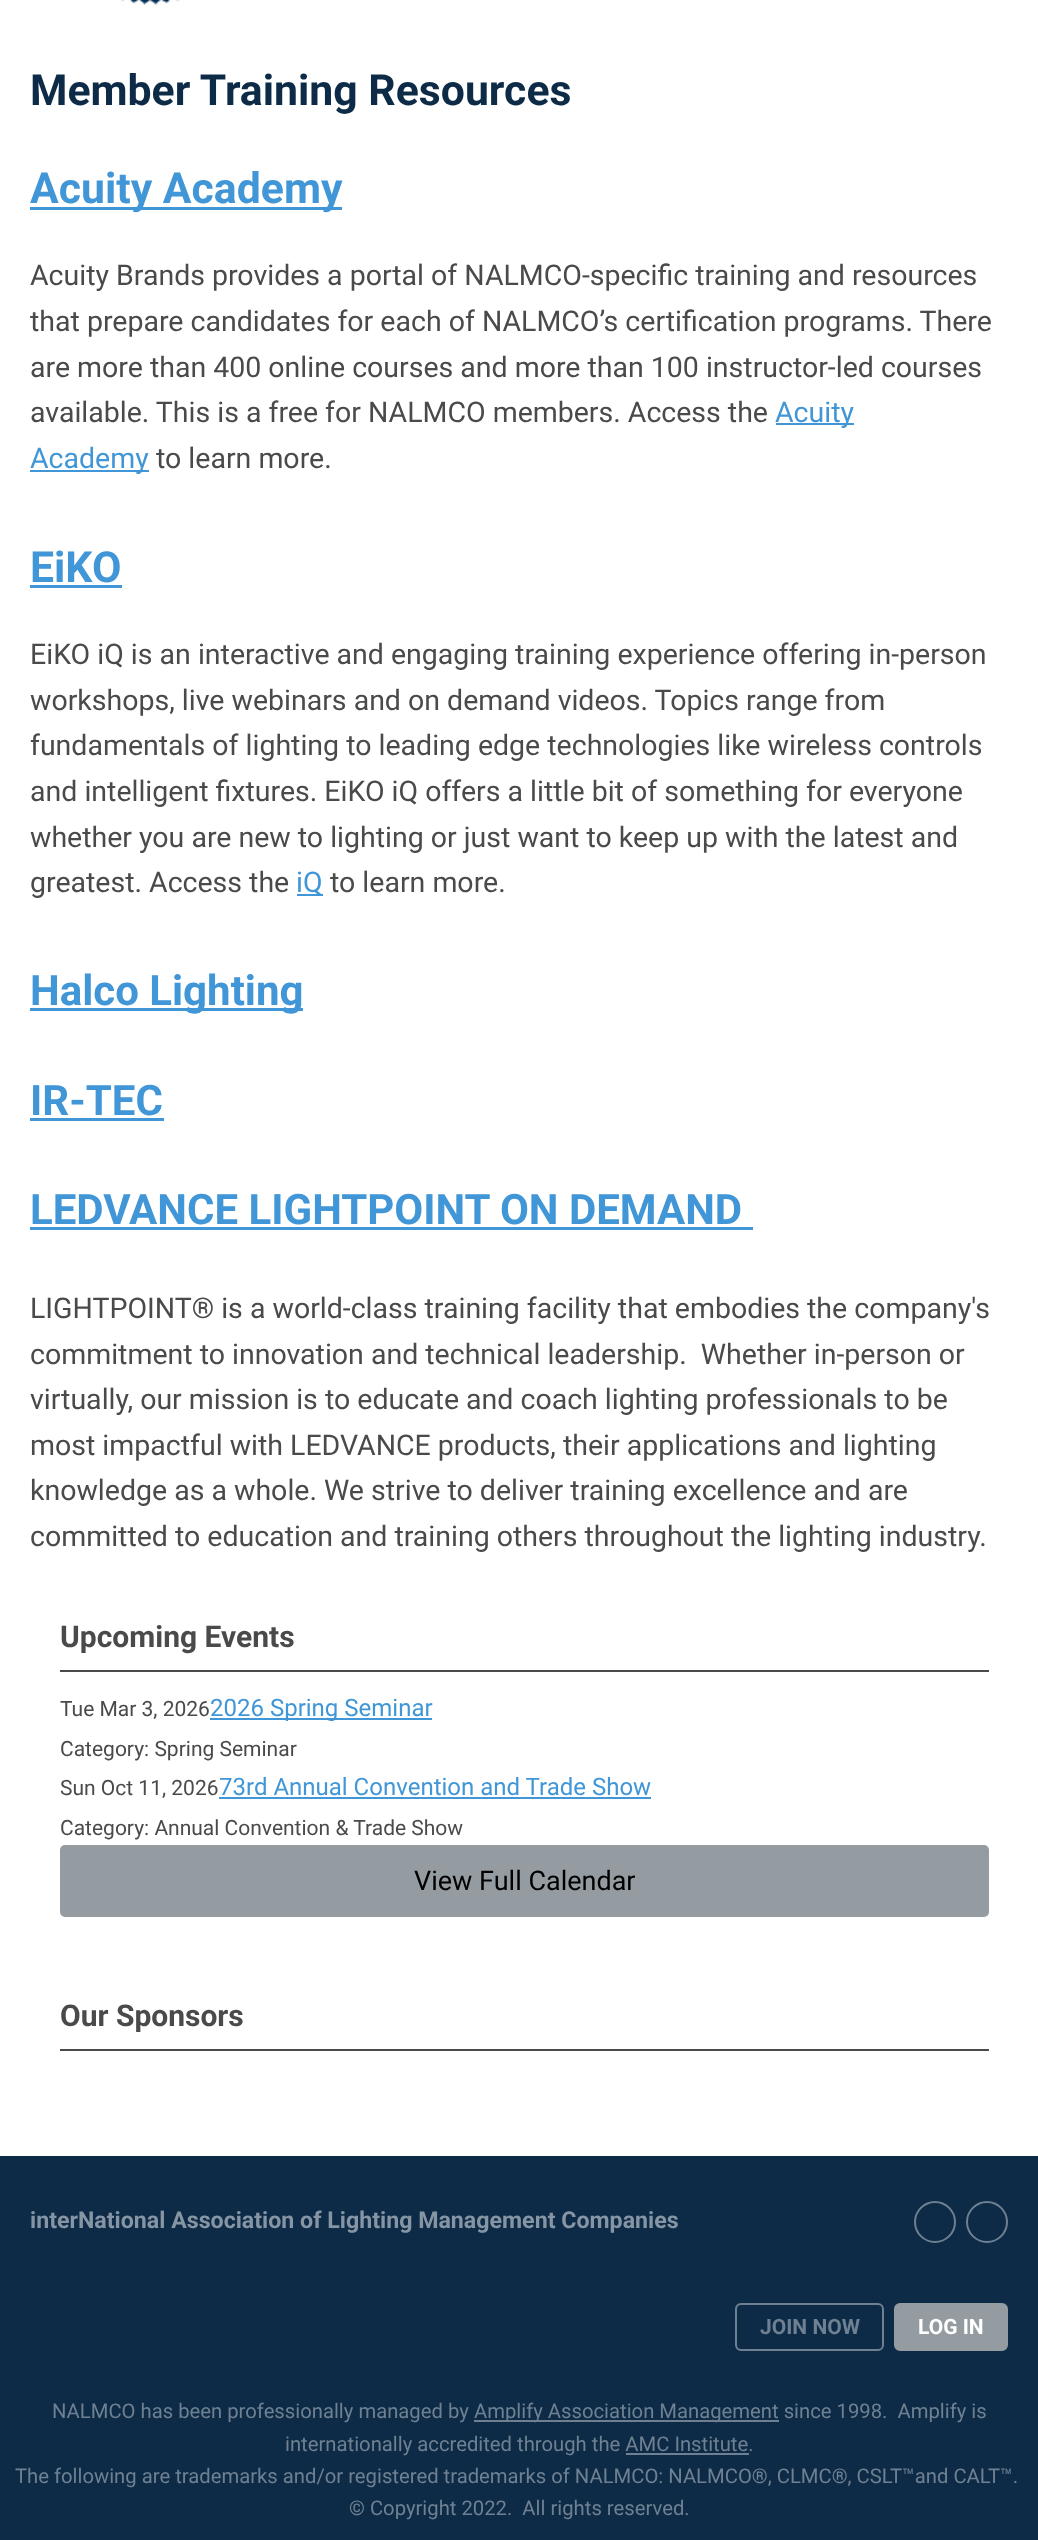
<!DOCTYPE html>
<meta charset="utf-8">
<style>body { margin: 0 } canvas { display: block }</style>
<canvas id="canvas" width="1038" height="2540"></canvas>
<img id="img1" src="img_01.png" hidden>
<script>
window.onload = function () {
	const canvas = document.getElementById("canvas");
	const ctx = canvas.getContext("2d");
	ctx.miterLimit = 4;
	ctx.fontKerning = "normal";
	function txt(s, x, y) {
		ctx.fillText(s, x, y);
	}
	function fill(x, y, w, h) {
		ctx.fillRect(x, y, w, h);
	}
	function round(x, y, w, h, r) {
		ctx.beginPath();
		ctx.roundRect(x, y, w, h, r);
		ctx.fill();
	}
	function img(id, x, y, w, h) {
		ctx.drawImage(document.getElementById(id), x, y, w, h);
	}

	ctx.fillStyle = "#FFFFFF";
	fill(0, 0, 1038, 2540);
	img("img1", 120, 0, 60, 5);
	ctx.fillStyle = "#4096D6";
	fill(30, 207, 312, 3);
	fill(776, 423, 78, 2);
	fill(30, 470, 119, 2);
	fill(30, 585, 92, 3);
	fill(297, 894, 26, 2);
	fill(30, 1008, 273, 3);
	fill(30, 1118, 134, 3);
	fill(30, 1227, 723, 3);
	ctx.fillStyle = "#4A4A4A";
	fill(60, 1670, 929, 2);
	ctx.fillStyle = "#4096D6";
	fill(210, 1718, 222, 2);
	fill(219, 1797, 432, 2);
	ctx.fillStyle = "#949CA1";
	round(60, 1845, 929, 72, 5);
	ctx.fillStyle = "#4A4A4A";
	fill(60, 2049, 929, 2);
	ctx.fillStyle = "#0D2B47";
	fill(0, 2156, 1038, 384);
	ctx.beginPath();
	ctx.arc(935, 2222, 20, 0, Math.PI * 2);
	ctx.strokeStyle = "#6E8091";
	ctx.lineWidth = 2;
	ctx.stroke();
	ctx.beginPath();
	ctx.arc(987, 2222, 20, 0, Math.PI * 2);
	ctx.stroke();
	ctx.beginPath();
	ctx.roundRect(736, 2304, 147, 46, 5);
	ctx.stroke();
	ctx.fillStyle = "#949CA1";
	ctx.beginPath();
	ctx.roundRect(895, 2304, 112, 46, 5);
	ctx.fill();
	ctx.strokeStyle = "#949CA1";
	ctx.stroke();
	ctx.fillStyle = "#6E8091";
	fill(474, 2420, 305, 2);
	fill(626, 2453, 123, 2);
	ctx.font = "bold 42.75px Roboto";
	ctx.fillStyle = "#0D2B47";
	txt("Member Training Resources", 30, 105);
	ctx.fillStyle = "#4096D6";
	txt("Acuity Academy", 30, 203);
	ctx.font = "28.5px Roboto";
	ctx.fillStyle = "#4A4A4A";
	txt("Acuity Brands provides a portal of NALMCO-specific training and resources", 30, 285);
	txt("that prepare candidates for each of NALMCO’s certification programs. There", 30, 331);
	txt("are more than 400 online courses and more than 100 instructor-led courses", 30, 377);
	txt("available. This is a free for NALMCO members. Access the", 30, 422);
	ctx.fillStyle = "#4096D6";
	txt("Acuity", 775, 422);
	txt("Academy", 30, 468);
	ctx.fillStyle = "#4A4A4A";
	txt("to learn more.", 156, 468);
	ctx.font = "bold 42.75px Roboto";
	ctx.fillStyle = "#4096D6";
	txt("EiKO", 30, 582);
	ctx.font = "28.5px Roboto";
	ctx.fillStyle = "#4A4A4A";
	txt("EiKO iQ is an interactive and engaging training experience offering in-person", 30, 664);
	txt("workshops, live webinars and on demand videos. Topics range from", 30, 710);
	txt("fundamentals of lighting to leading edge technologies like wireless controls", 30, 755);
	txt("and intelligent fixtures. EiKO iQ offers a little bit of something for everyone", 30, 801);
	txt("whether you are new to lighting or just want to keep up with the latest and", 30, 847);
	txt("greatest. Access the", 30, 892);
	ctx.fillStyle = "#4096D6";
	txt("iQ", 296, 892);
	ctx.fillStyle = "#4A4A4A";
	txt("to learn more.", 330, 892);
	ctx.font = "bold 42px Roboto";
	ctx.fillStyle = "#4096D6";
	txt("Halco Lighting", 30, 1005);
	txt("IR-TEC", 30, 1115);
	txt("LEDVANCE LIGHTPOINT ON DEMAND", 30, 1224);
	ctx.font = "28.5px Roboto";
	ctx.fillStyle = "#4A4A4A";
	txt("LIGHTPOINT® is a world-class training facility that embodies the company's", 30, 1318);
	txt("commitment to innovation and technical leadership.  Whether in-person or", 30, 1364);
	txt("virtually, our mission is to educate and coach lighting professionals to be", 30, 1409);
	txt("most impactful with LEDVANCE products, their applications and lighting", 30, 1455);
	txt("knowledge as a whole. We strive to deliver training excellence and are", 30, 1500);
	txt("committed to education and training others throughout the lighting industry.", 30, 1546);
	ctx.font = "bold 30px Roboto";
	txt("Upcoming Events", 60, 1647);
	ctx.font = "21px Roboto";
	txt("Tue Mar 3, 2026", 60, 1716);
	ctx.font = "24px Roboto";
	ctx.fillStyle = "#4096D6";
	txt("2026 Spring Seminar", 210, 1716);
	ctx.font = "21px Roboto";
	ctx.fillStyle = "#4A4A4A";
	txt("Category: Spring Seminar", 60, 1756);
	txt("Sun Oct 11, 2026", 60, 1795);
	ctx.font = "24px Roboto";
	ctx.fillStyle = "#4096D6";
	txt("73rd Annual Convention and Trade Show", 219, 1795);
	ctx.font = "21px Roboto";
	ctx.fillStyle = "#4A4A4A";
	txt("Category: Annual Convention & Trade Show", 60, 1835);
	ctx.font = "27px Roboto";
	ctx.fillStyle = "#000000";
	txt("View Full Calendar", 414, 1890);
	ctx.font = "bold 30px Roboto";
	ctx.fillStyle = "#4A4A4A";
	txt("Our Sponsors", 60, 2026);
	ctx.font = "bold 23.2px Roboto";
	ctx.fillStyle = "#8695A3";
	txt("interNational Association of Lighting Management Companies", 30, 2228);
	ctx.font = "bold 21px Roboto";
	ctx.fillStyle = "#6E8091";
	txt("JOIN NOW", 760, 2334);
	ctx.fillStyle = "#FFFFFF";
	txt("LOG IN", 918, 2334);
	ctx.font = "20.25px Roboto";
	ctx.fillStyle = "#6E8091";
	txt("NALMCO has been professionally managed by", 52, 2418);
	txt("Amplify Association Management since 1998.  Amplify is", 474, 2418);
	txt("internationally accredited through the AMC Institute.", 285, 2451);
	txt("The following are trademarks and/or registered trademarks of NALMCO: NALMCO®, CLMC®, CSLT™and CALT™.", 15, 2483);
	txt("© Copyright 2022.  All rights reserved.", 349, 2515);
};
</script>
